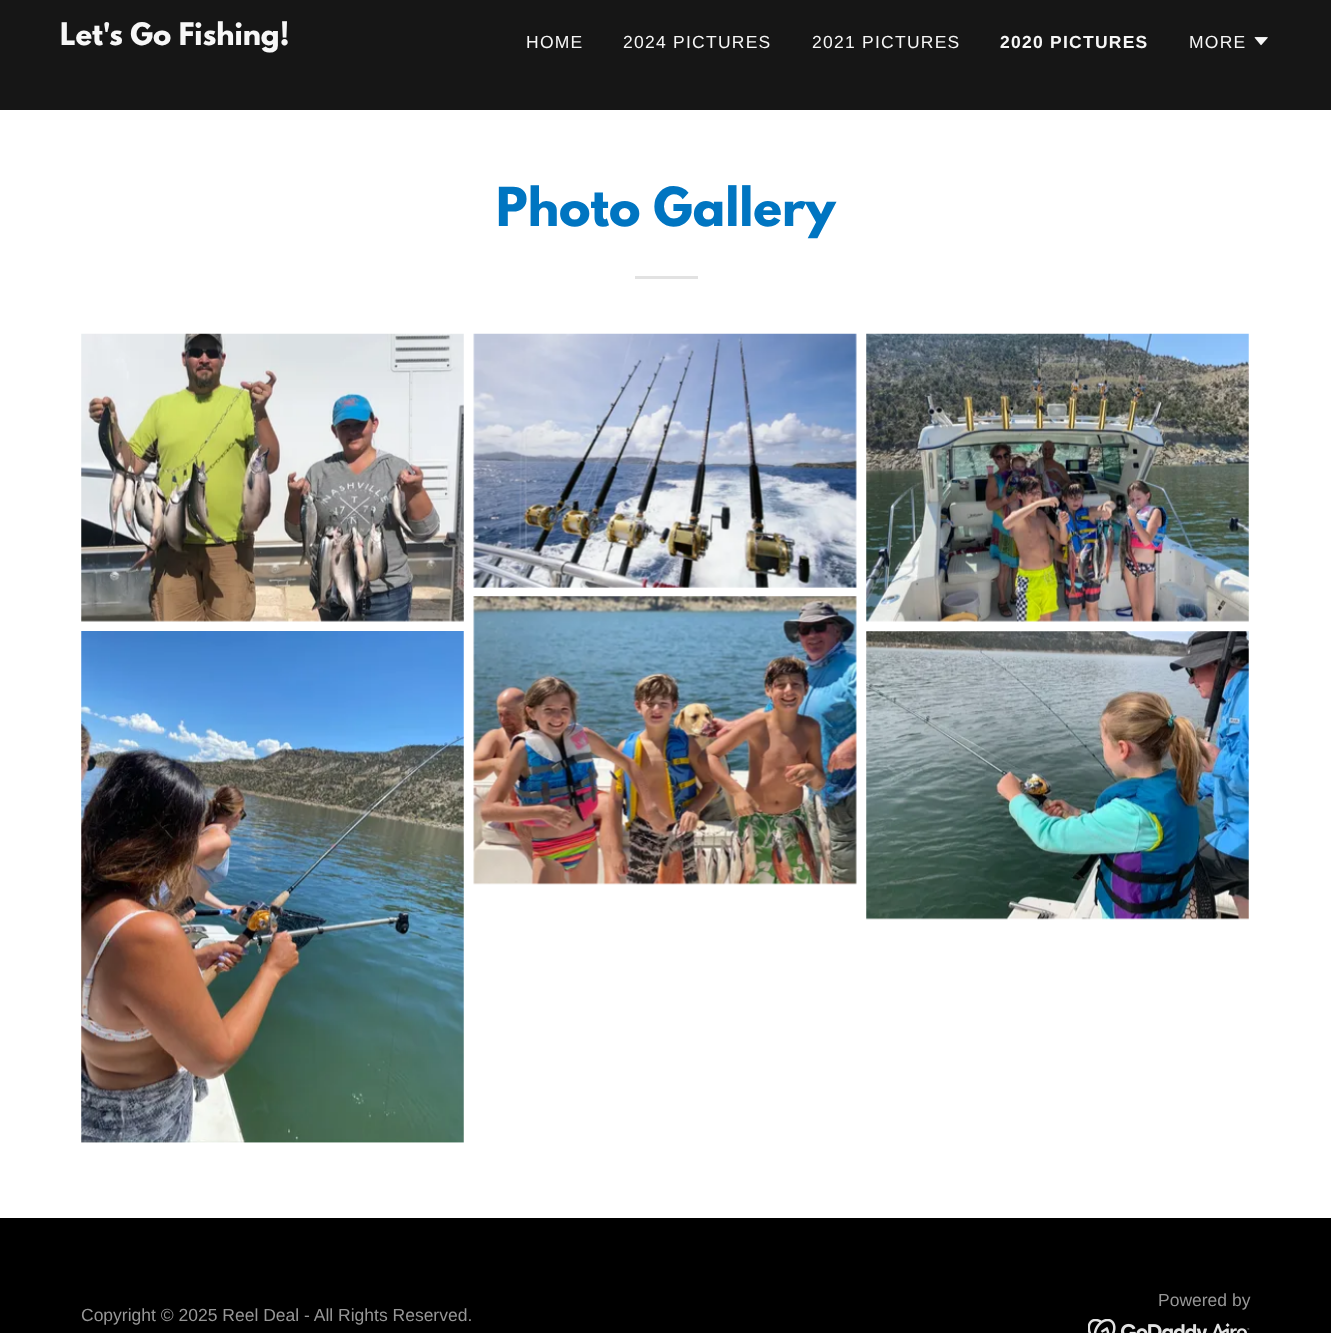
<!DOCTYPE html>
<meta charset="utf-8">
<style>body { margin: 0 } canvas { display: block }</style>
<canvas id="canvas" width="1331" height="1333"></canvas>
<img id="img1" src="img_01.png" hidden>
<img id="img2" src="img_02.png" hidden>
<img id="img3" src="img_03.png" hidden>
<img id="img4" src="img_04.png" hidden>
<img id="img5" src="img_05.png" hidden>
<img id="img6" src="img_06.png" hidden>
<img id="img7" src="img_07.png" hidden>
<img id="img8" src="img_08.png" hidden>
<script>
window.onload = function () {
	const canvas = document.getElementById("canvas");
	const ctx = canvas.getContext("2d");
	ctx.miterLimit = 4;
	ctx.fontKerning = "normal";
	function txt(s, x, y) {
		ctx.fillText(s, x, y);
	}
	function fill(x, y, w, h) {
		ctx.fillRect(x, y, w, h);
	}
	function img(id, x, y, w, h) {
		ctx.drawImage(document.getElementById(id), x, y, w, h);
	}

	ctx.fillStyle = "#000000";
	fill(0, 0, 1331, 1333);
	ctx.fillStyle = "#161616";
	fill(0, 0, 1331, 110);
	img("img1", 1254, 37, 14, 9);
	ctx.fillStyle = "#FFFFFF";
	fill(0, 110, 1331, 1108);
	ctx.fillStyle = "#E2E2E2";
	fill(635, 276, 63, 3);
	img("img2", 81, 333, 383, 289);
	img("img3", 473, 333, 384, 255);
	img("img4", 866, 333, 383, 289);
	img("img5", 81, 631, 383, 512);
	img("img6", 473, 596, 384, 289);
	img("img7", 866, 631, 383, 289);
	img("img8", 1088, 1319, 162, 14);
	ctx.font = "bold 27.5px League Spartan";
	ctx.fillStyle = "#F7F7F7";
	txt("Let's Go Fishing!", 60, 45);
	ctx.letterSpacing = "1.25px";
	ctx.font = "17.5px Liberation Sans";
	txt("HOME", 526, 48);
	txt("2024 PICTURES", 623, 48);
	txt("2021 PICTURES", 812, 48);
	ctx.font = "bold 17.5px Liberation Sans";
	txt("2020 PICTURES", 1000, 48);
	ctx.font = "17.5px Liberation Sans";
	txt("MORE", 1189, 48);
	ctx.letterSpacing = "0px";
	ctx.font = "bold 47.5px League Spartan";
	ctx.fillStyle = "#0075C1";
	txt("Photo Gallery", 496, 226);
	ctx.font = "17.5px Liberation Sans";
	ctx.fillStyle = "#969696";
	txt("Powered by", 1158, 1306);
	txt("Copyright © 2025 Reel Deal - All Rights Reserved.", 81, 1321);
};
</script>
